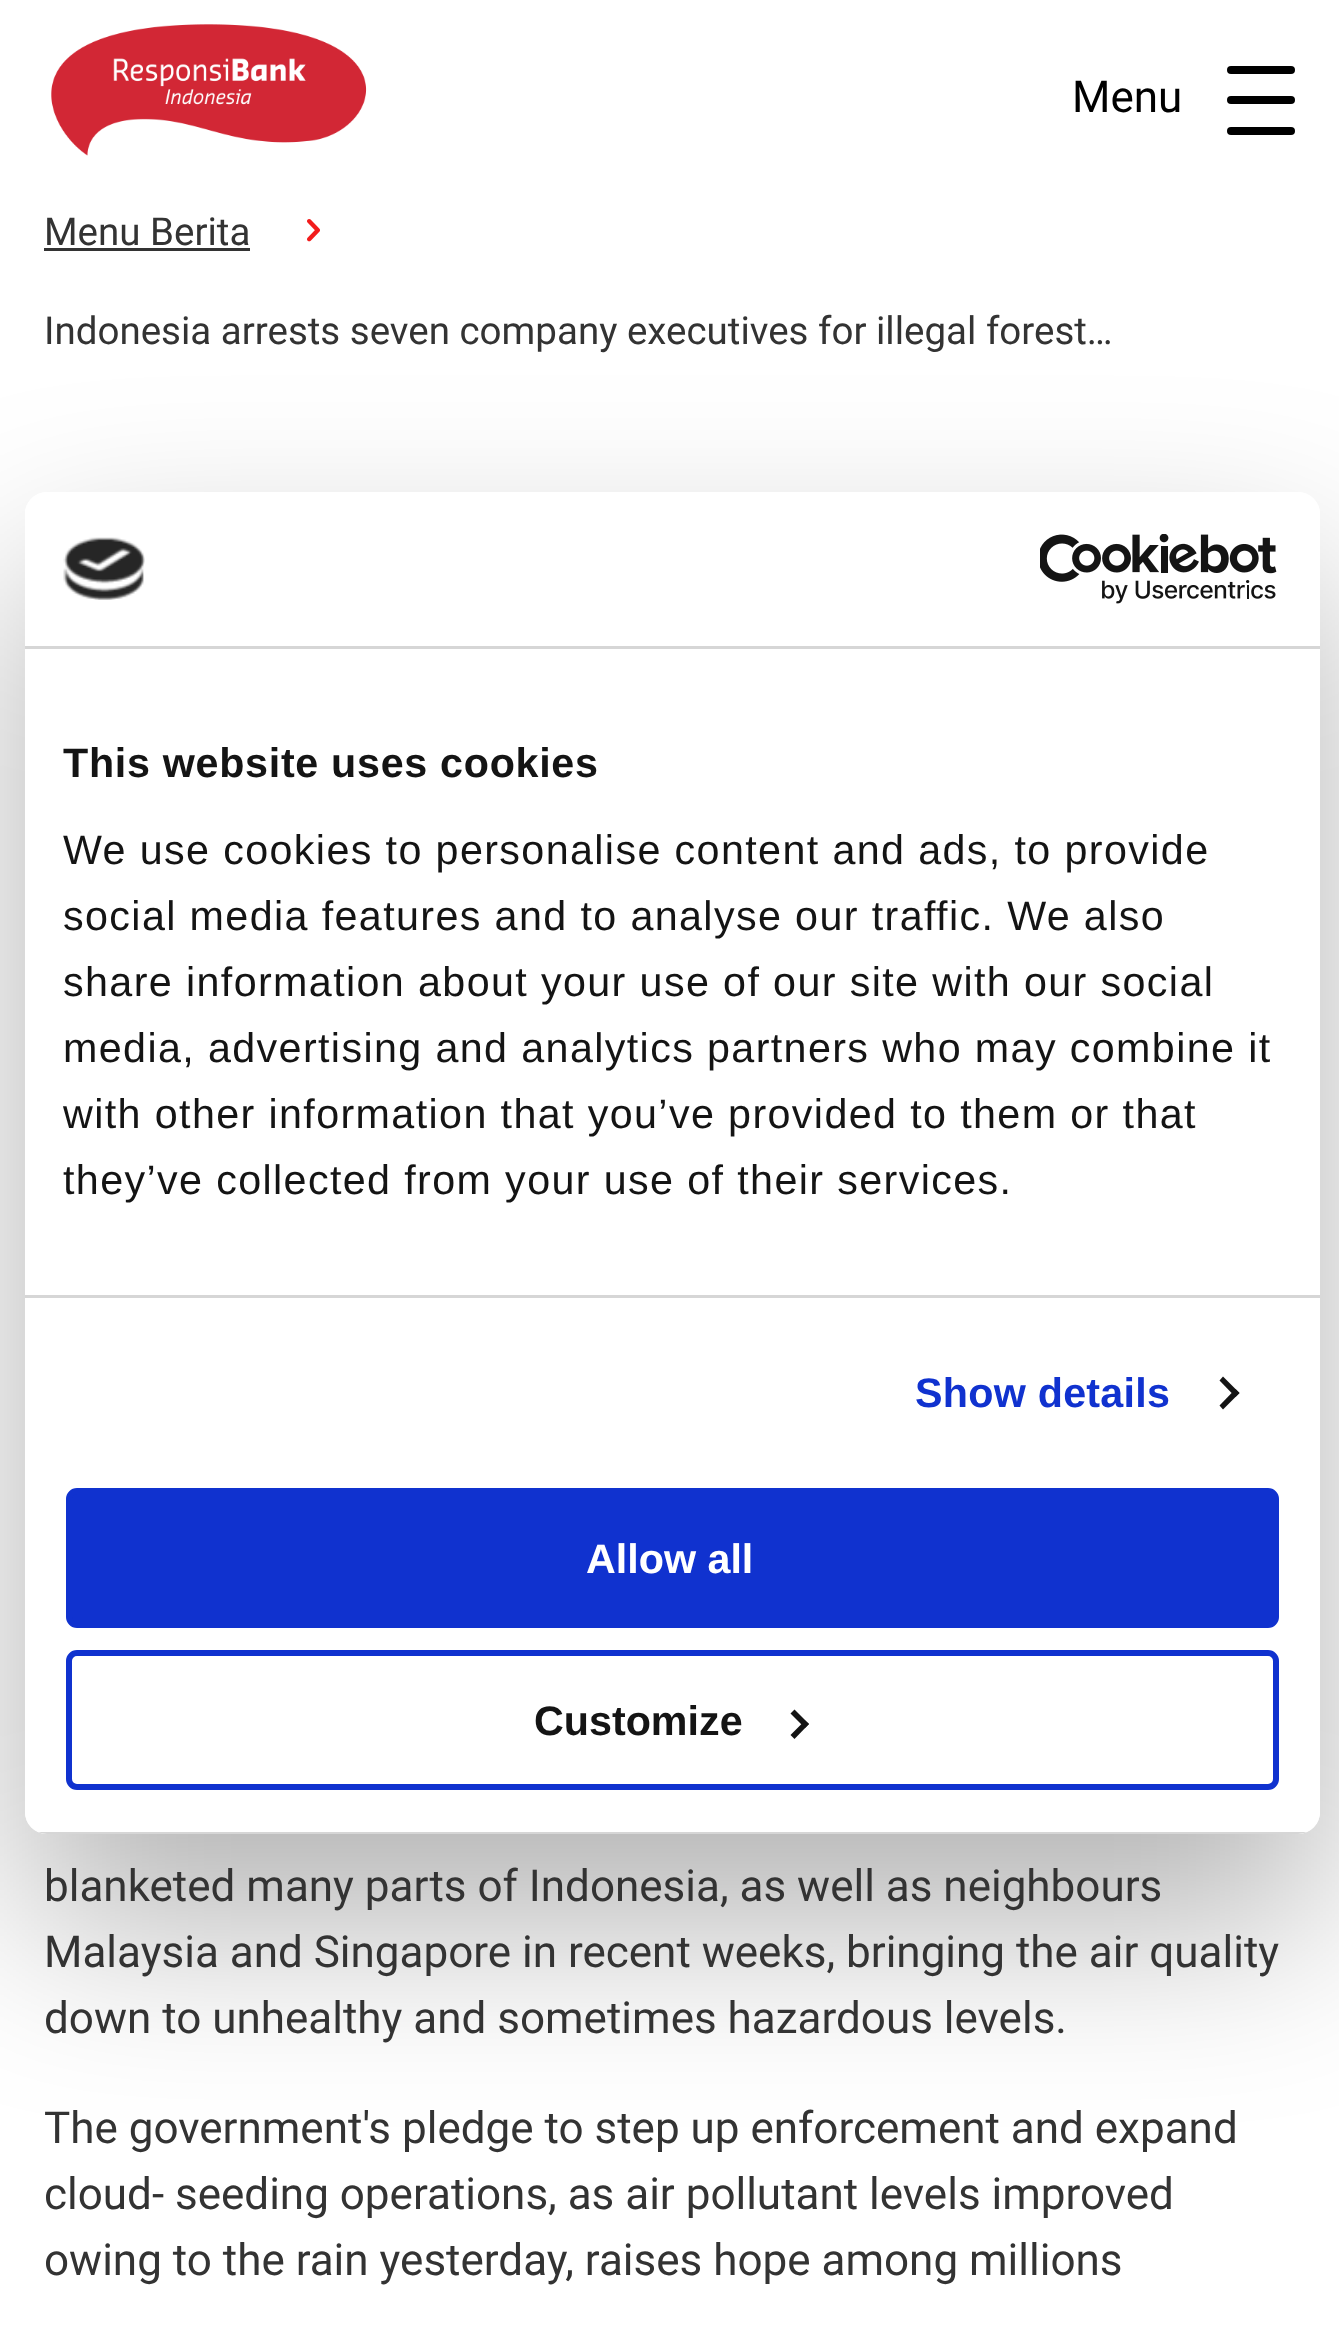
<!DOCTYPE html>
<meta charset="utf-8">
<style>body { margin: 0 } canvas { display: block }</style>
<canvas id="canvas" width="1339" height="2325"></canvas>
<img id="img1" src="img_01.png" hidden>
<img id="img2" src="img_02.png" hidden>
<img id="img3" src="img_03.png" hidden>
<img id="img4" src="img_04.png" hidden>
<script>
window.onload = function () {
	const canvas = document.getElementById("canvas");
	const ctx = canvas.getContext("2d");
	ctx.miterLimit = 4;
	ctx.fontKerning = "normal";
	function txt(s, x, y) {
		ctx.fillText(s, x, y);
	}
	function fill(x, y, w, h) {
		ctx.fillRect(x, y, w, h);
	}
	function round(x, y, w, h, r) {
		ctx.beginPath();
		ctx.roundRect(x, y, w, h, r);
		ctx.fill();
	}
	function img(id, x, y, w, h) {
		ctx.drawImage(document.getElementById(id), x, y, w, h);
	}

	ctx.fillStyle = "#FFFFFF";
	fill(0, 0, 1339, 2325);
	img("img1", 51, 24, 316, 132);
	ctx.fillStyle = "#000000";
	round(1227, 66, 68, 8, 4);
	round(1227, 96, 68, 8, 4);
	round(1227, 127, 68, 8, 4);
	ctx.fillStyle = "#333333";
	fill(44, 248, 206, 3);
	img("img2", 307, 219, 13, 23);
	ctx.save();
	ctx.beginPath();
	ctx.moveTo(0, 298);
	ctx.lineTo(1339, 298);
	ctx.lineTo(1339, 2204);
	ctx.lineTo(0, 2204);
	ctx.closePath();
	ctx.moveTo(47, 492);
	ctx.lineTo(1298, 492);
	ctx.bezierCurveTo(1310, 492, 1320, 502, 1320, 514);
	ctx.lineTo(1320, 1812);
	ctx.bezierCurveTo(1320, 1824, 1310, 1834, 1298, 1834);
	ctx.lineTo(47, 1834);
	ctx.bezierCurveTo(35, 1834, 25, 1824, 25, 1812);
	ctx.lineTo(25, 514);
	ctx.bezierCurveTo(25, 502, 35, 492, 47, 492);
	ctx.closePath();
	ctx.clip("evenodd");
	ctx.fillStyle = "rgba(0, 0, 0, 0.3)";
	ctx.filter = "blur(93.5px)";
	ctx.beginPath();
	ctx.roundRect(25, 580, 1295, 1342, 22);
	ctx.fill();
	ctx.filter = "none";
	ctx.restore();
	ctx.fillStyle = "#FFFFFF";
	round(25, 492, 1295, 1342, 22);
	ctx.fillStyle = "#D6D6D6";
	fill(25, 646, 1295, 3);
	img("img3", 63, 537, 82, 63);
	img("img4", 1040, 534, 237, 70);
	fill(25, 1295, 1295, 3);
	ctx.fillStyle = "#141414";
	ctx.beginPath();
	ctx.moveTo(1223, 1376.5);
	ctx.lineTo(1239.5, 1393);
	ctx.lineTo(1235.5, 1397);
	ctx.lineTo(1219.5, 1380.5);
	ctx.closePath();
	ctx.fill();
	ctx.beginPath();
	ctx.moveTo(1235.5, 1389);
	ctx.lineTo(1239.5, 1393);
	ctx.lineTo(1223, 1409.5);
	ctx.lineTo(1219.5, 1405.5);
	ctx.closePath();
	ctx.fill();
	ctx.save();
	ctx.beginPath();
	ctx.roundRect(25, 492, 1295, 1342, 22);
	ctx.clip();
	ctx.fillStyle = "#D6D6D6";
	fill(38, 1832, 1269, 2);
	ctx.restore();
	ctx.fillStyle = "#1032CF";
	ctx.beginPath();
	ctx.roundRect(69, 1491, 1207, 134, 8);
	ctx.fill();
	ctx.strokeStyle = "#1032CF";
	ctx.lineWidth = 6;
	ctx.stroke();
	ctx.beginPath();
	ctx.roundRect(69, 1653, 1207, 134, 8);
	ctx.stroke();
	ctx.fillStyle = "#141414";
	ctx.beginPath();
	ctx.moveTo(794.5, 1709.5);
	ctx.lineTo(809, 1724);
	ctx.lineTo(805, 1728);
	ctx.lineTo(790.5, 1713.5);
	ctx.closePath();
	ctx.fill();
	ctx.beginPath();
	ctx.moveTo(805, 1720.5);
	ctx.lineTo(809, 1724);
	ctx.lineTo(794.5, 1739);
	ctx.lineTo(790.5, 1735);
	ctx.closePath();
	ctx.fill();
	ctx.font = "44px Roboto";
	ctx.fillStyle = "#000000";
	txt("Menu", 1072, 112);
	ctx.font = "38.5px Roboto";
	ctx.fillStyle = "#333333";
	txt("Menu Berita", 44, 245);
	txt("Indonesia arrests seven company executives for illegal forest…", 44, 344);
	ctx.letterSpacing = "0.7px";
	ctx.font = "bold 41.25px Liberation Sans";
	ctx.fillStyle = "#141414";
	txt("This website uses cookies", 63, 777);
	ctx.letterSpacing = "1.38px";
	ctx.font = "41.25px Liberation Sans";
	txt("We use cookies to personalise content and ads, to provide", 63, 864);
	txt("social media features and to analyse our traffic. We also", 63, 930);
	txt("share information about your use of our site with our social", 63, 996);
	txt("media, advertising and analytics partners who may combine it", 63, 1062);
	txt("with other information that you’ve provided to them or that", 63, 1128);
	txt("they’ve collected from your use of their services.", 63, 1194);
	ctx.letterSpacing = "0.25px";
	ctx.font = "bold 41.25px Liberation Sans";
	ctx.fillStyle = "#1032CF";
	txt("Show details", 915, 1407);
	ctx.letterSpacing = "0px";
	ctx.fillStyle = "#FFFFFF";
	txt("Allow all", 586, 1573);
	ctx.fillStyle = "#141414";
	txt("Customize", 534, 1735);
	ctx.font = "44px Roboto";
	ctx.fillStyle = "#333333";
	txt("blanketed many parts of Indonesia, as well as neighbours", 44, 1901);
	txt("Malaysia and Singapore in recent weeks, bringing the air quality", 44, 1967);
	txt("down to unhealthy and sometimes hazardous levels.", 44, 2033);
	txt("The government's pledge to step up enforcement and expand", 44, 2143);
	txt("cloud- seeding operations, as air pollutant levels improved", 44, 2209);
	txt("owing to the rain yesterday, raises hope among millions", 44, 2275);
};
</script>
